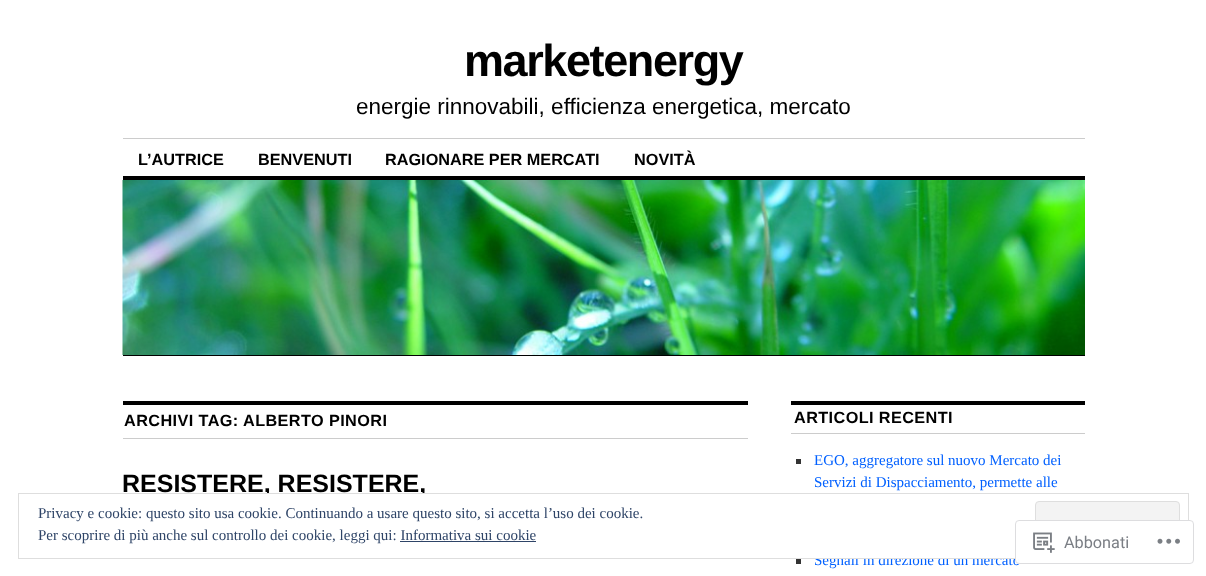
<!DOCTYPE html>
<meta charset="utf-8">
<style>body { margin: 0 } canvas { display: block }</style>
<canvas id="canvas" width="1206" height="576"></canvas>
<img id="img1" src="img_01.png" hidden>
<img id="img2" src="img_02.png" hidden>
<img id="img3" src="img_03.png" hidden>
<script>
window.onload = function () {
	const canvas = document.getElementById("canvas");
	const ctx = canvas.getContext("2d");
	ctx.miterLimit = 4;
	ctx.fontKerning = "normal";
	function txt(s, x, y) {
		ctx.fillText(s, x, y);
	}
	function fill(x, y, w, h) {
		ctx.fillRect(x, y, w, h);
	}
	function round(x, y, w, h, r) {
		ctx.beginPath();
		ctx.roundRect(x, y, w, h, r);
		ctx.fill();
	}
	function img(id, x, y, w, h) {
		ctx.drawImage(document.getElementById(id), x, y, w, h);
	}

	ctx.fillStyle = "#FFFFFF";
	fill(0, 0, 1206, 576);
	ctx.fillStyle = "#CCCCCC";
	fill(123, 138, 962, 1);
	ctx.fillStyle = "#000000";
	fill(123, 176, 962, 4);
	img("img1", 122, 180, 963, 175);
	fill(123, 355, 962, 1);
	fill(123, 401, 625, 4);
	ctx.fillStyle = "#CCCCCC";
	fill(123, 438, 625, 1);
	ctx.fillStyle = "#000000";
	fill(791, 401, 294, 4);
	ctx.fillStyle = "#CCCCCC";
	fill(791, 433, 294, 1);
	ctx.fillStyle = "#333333";
	fill(796, 459, 5, 5);
	fill(796, 559, 5, 5);
	ctx.letterSpacing = "-1.4px";
	ctx.font = "bold 45px Liberation Sans";
	ctx.fillStyle = "#000000";
	txt("marketenergy", 464, 76);
	ctx.letterSpacing = "0px";
	ctx.font = "22.5px Liberation Sans";
	txt("energie rinnovabili, efficienza energetica, mercato", 356, 114);
	ctx.font = "bold 16.25px Liberation Sans";
	txt("L’AUTRICE", 138, 165);
	txt("BENVENUTI", 258, 165);
	txt("RAGIONARE PER MERCATI", 385, 165);
	txt("NOVITÀ", 634, 165);
	ctx.letterSpacing = "0.4px";
	txt("ARCHIVI TAG:", 124, 426);
	txt("ALBERTO PINORI", 243, 426);
	ctx.letterSpacing = "0px";
	ctx.font = "bold 25px Liberation Sans";
	txt("RESISTERE, RESISTERE,", 122, 492);
	ctx.letterSpacing = "0.4px";
	ctx.font = "bold 16.25px Liberation Sans";
	txt("ARTICOLI RECENTI", 794, 423);
	ctx.letterSpacing = "0px";
	ctx.font = "15px Liberation Serif";
	ctx.fillStyle = "#0060FF";
	txt("EGO, aggregatore sul nuovo Mercato dei", 814, 465);
	txt("Servizi di Dispacciamento, permette alle", 814, 487);
	txt("Segnali in direzione di un mercato", 814, 565);
	ctx.fillStyle = "#FFFFFF";
	fill(265, 494, 752, 64);
	ctx.strokeStyle = "#DEDEDE";
	ctx.strokeRect(18.5, 493.5, 1170, 65);
	ctx.fillStyle = "#2E4467";
	txt("Privacy e cookie: questo sito usa cookie. Continuando a usare questo sito, si accetta l’uso dei cookie.", 38, 518);
	ctx.fillStyle = "#F3F3F3";
	ctx.beginPath();
	ctx.roundRect(1035.5, 501.5, 144, 48, 3.5);
	ctx.fill();
	ctx.stroke();
	ctx.fillStyle = "#2E4467";
	txt("Per scoprire di più anche sul controllo dei cookie, leggi qui: Informativa sui cookie", 38, 540);
	fill(400, 541, 136, 1);
	ctx.fillStyle = "rgba(255, 255, 255, 0.98)";
	round(1015, 520, 179, 44, 4);
	ctx.beginPath();
	ctx.roundRect(1015.5, 520.5, 178, 43, 3.5);
	ctx.strokeStyle = "rgba(220, 220, 222, 0.98)";
	ctx.stroke();
	img("img2", 1033, 532, 22, 21);
	ctx.font = "16.25px Roboto";
	ctx.fillStyle = "#7A7E84";
	txt("Abbonati", 1064, 548);
	img("img3", 1157, 538, 23, 6);
};
</script>
